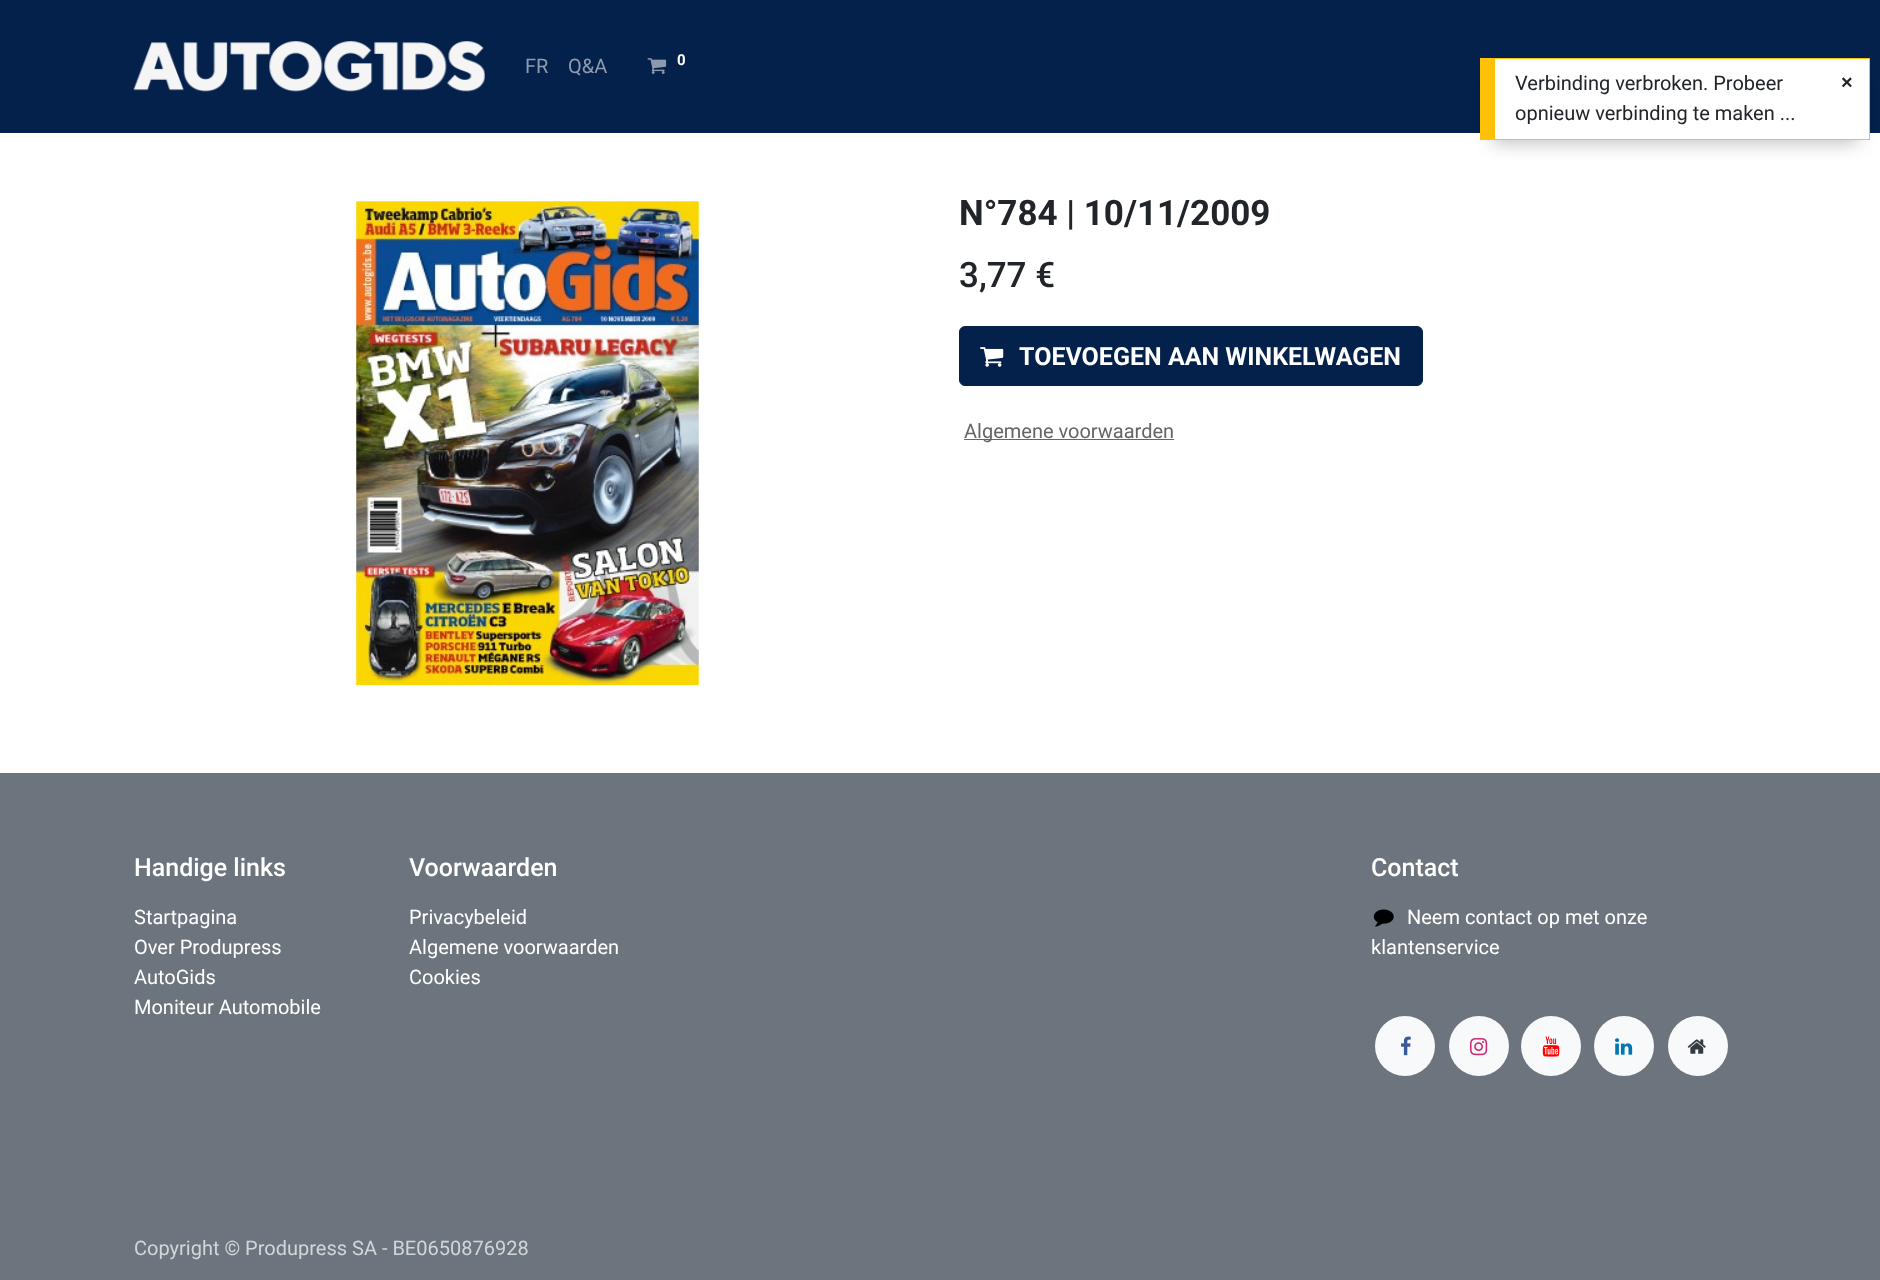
<!DOCTYPE html>
<meta charset="utf-8">
<style>body { margin: 0 } canvas { display: block }</style>
<canvas id="canvas" width="1880" height="1280"></canvas>
<img id="img1" src="img_01.png" hidden>
<img id="img2" src="img_02.png" hidden>
<img id="img3" src="img_03.png" hidden>
<img id="img4" src="img_04.png" hidden>
<img id="img5" src="img_05.png" hidden>
<img id="img6" src="img_06.png" hidden>
<img id="img7" src="img_07.png" hidden>
<img id="img8" src="img_08.png" hidden>
<img id="img9" src="img_09.png" hidden>
<img id="img10" src="img_10.png" hidden>
<script>
window.onload = function () {
	const canvas = document.getElementById("canvas");
	const ctx = canvas.getContext("2d");
	ctx.miterLimit = 4;
	ctx.fontKerning = "normal";
	function txt(s, x, y) {
		ctx.fillText(s, x, y);
	}
	function fill(x, y, w, h) {
		ctx.fillRect(x, y, w, h);
	}
	function img(id, x, y, w, h) {
		ctx.drawImage(document.getElementById(id), x, y, w, h);
	}

	ctx.fillStyle = "#FFFFFF";
	fill(0, 0, 1880, 1280);
	ctx.fillStyle = "#04214C";
	fill(0, 0, 1880, 133);
	img("img1", 133, 41, 352, 51);
	img("img2", 647, 58, 20, 16);
	img("img3", 356, 201, 343, 484);
	ctx.beginPath();
	ctx.roundRect(959.5, 326.5, 463, 59, 5.5);
	ctx.fill();
	ctx.strokeStyle = "#04214C";
	ctx.stroke();
	img("img4", 980, 347, 24, 20);
	ctx.fillStyle = "#646669";
	fill(964, 439, 210, 1);
	ctx.fillStyle = "#6C757D";
	fill(0, 773, 1880, 507);
	img("img5", 1373, 909, 21, 18);
	ctx.fillStyle = "#F8F9FA";
	ctx.beginPath();
	ctx.arc(1405, 1046, 30, 0, Math.PI * 2);
	ctx.fill();
	img("img6", 1401, 1036, 10, 20);
	ctx.beginPath();
	ctx.arc(1479, 1046, 30, 0, Math.PI * 2);
	ctx.fill();
	img("img7", 1470, 1038, 18, 18);
	ctx.beginPath();
	ctx.arc(1551, 1046, 30, 0, Math.PI * 2);
	ctx.fill();
	img("img8", 1542, 1036, 18, 21);
	ctx.beginPath();
	ctx.arc(1624, 1046, 30, 0, Math.PI * 2);
	ctx.fill();
	img("img9", 1615, 1038, 18, 17);
	ctx.beginPath();
	ctx.arc(1698, 1046, 30, 0, Math.PI * 2);
	ctx.fill();
	img("img10", 1687, 1039, 19, 15);
	ctx.fillStyle = "rgba(0, 0, 0, 0.25)";
	ctx.filter = "blur(9px)";
	ctx.beginPath();
	ctx.rect(1493, 85, 365, 58);
	ctx.fill();
	ctx.filter = "none";
	ctx.fillStyle = "#FFFFFF";
	fill(1495, 59, 374, 80);
	ctx.fillStyle = "#FFC107";
	fill(1495, 58, 375, 1);
	fill(1869, 58, 1, 82);
	fill(1495, 139, 375, 1);
	fill(1480, 58, 15, 82);
	ctx.font = "20px Roboto";
	ctx.fillStyle = "#8E9BAE";
	txt("FR", 525, 73);
	txt("Q&A", 568, 73);
	ctx.font = "bold 15px Roboto";
	ctx.fillStyle = "#FFFFFF";
	txt("0", 677, 65);
	ctx.font = "bold 35px Roboto";
	ctx.fillStyle = "#212529";
	txt("N°784 | 10/11/2009", 959, 225);
	ctx.font = "500 35px Roboto";
	txt("3,77 €", 959, 287);
	ctx.font = "bold 25px Roboto";
	ctx.fillStyle = "#FFFFFF";
	txt("TOEVOEGEN AAN WINKELWAGEN", 1019, 365);
	ctx.font = "20px Roboto";
	ctx.fillStyle = "#636669";
	txt("Algemene voorwaarden", 964, 438);
	ctx.font = "500 25px Roboto";
	ctx.fillStyle = "#FFFFFF";
	txt("Handige links", 134, 876);
	ctx.font = "20px Roboto";
	txt("Startpagina", 134, 924);
	txt("Over Produpress", 134, 954);
	txt("AutoGids", 134, 984);
	txt("Moniteur Automobile", 134, 1014);
	ctx.font = "500 25px Roboto";
	txt("Voorwaarden", 409, 876);
	ctx.font = "20px Roboto";
	txt("Privacybeleid", 409, 924);
	txt("Algemene voorwaarden", 409, 954);
	txt("Cookies", 409, 984);
	ctx.font = "500 25px Roboto";
	txt("Contact", 1371, 876);
	ctx.font = "20px Roboto";
	txt("Neem contact op met onze", 1407, 924);
	txt("klantenservice", 1371, 954);
	ctx.fillStyle = "#D3D6D8";
	txt("Copyright © Produpress SA - BE0650876928", 134, 1255);
	ctx.fillStyle = "#212529";
	txt("Verbinding verbroken. Probeer", 1515, 90);
	txt("opnieuw verbinding te maken ...", 1515, 120);
	ctx.font = "bold 20px Liberation Sans";
	txt("×", 1841, 89);
};
</script>
